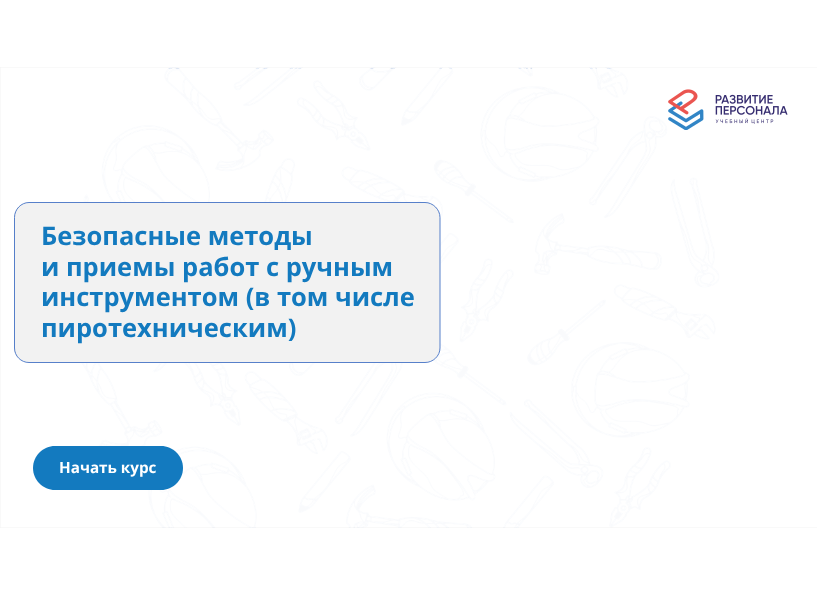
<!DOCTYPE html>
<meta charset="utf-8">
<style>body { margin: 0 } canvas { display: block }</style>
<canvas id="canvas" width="817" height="593"></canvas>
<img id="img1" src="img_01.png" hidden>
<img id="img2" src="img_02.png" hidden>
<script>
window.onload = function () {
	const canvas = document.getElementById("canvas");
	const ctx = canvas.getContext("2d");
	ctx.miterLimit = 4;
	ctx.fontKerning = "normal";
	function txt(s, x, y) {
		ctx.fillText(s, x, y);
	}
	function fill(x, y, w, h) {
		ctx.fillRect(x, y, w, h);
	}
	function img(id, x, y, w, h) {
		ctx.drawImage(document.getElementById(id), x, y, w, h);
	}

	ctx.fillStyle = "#FFFFFF";
	fill(0, 0, 817, 593);
	ctx.strokeStyle = "#F5F5F5";
	ctx.lineWidth = 0.6;
	ctx.strokeRect(0.3, 67.3, 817.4, 460.4);
	img("img1", 80, 67, 640, 461);
	img("img2", 668, 89, 120, 41);
	ctx.fillStyle = "#F2F2F2";
	ctx.beginPath();
	ctx.moveTo(14, 217);
	ctx.bezierCurveTo(14, 209, 21, 203, 29, 203);
	ctx.lineTo(425, 203);
	ctx.bezierCurveTo(433, 203, 440, 209, 440, 217);
	ctx.lineTo(440, 348);
	ctx.bezierCurveTo(440, 356, 433, 362, 425, 362);
	ctx.lineTo(29, 362);
	ctx.bezierCurveTo(21, 362, 14, 356, 14, 348);
	ctx.closePath();
	ctx.fill("evenodd");
	ctx.beginPath();
	ctx.moveTo(14.5, 217.5);
	ctx.bezierCurveTo(14.5, 209.5, 21, 202.5, 29, 202.5);
	ctx.lineTo(425, 202.5);
	ctx.bezierCurveTo(433, 202.5, 440, 209.5, 440, 217.5);
	ctx.lineTo(440, 348);
	ctx.bezierCurveTo(440, 356, 433, 362.5, 425, 362.5);
	ctx.lineTo(29, 362.5);
	ctx.bezierCurveTo(21, 362.5, 14.5, 356, 14.5, 348);
	ctx.closePath();
	ctx.strokeStyle = "#4472C4";
	ctx.lineWidth = 0.9;
	ctx.stroke();
	ctx.fillStyle = "#137ABF";
	ctx.beginPath();
	ctx.moveTo(33, 468);
	ctx.bezierCurveTo(33, 456, 43, 446, 55, 446);
	ctx.lineTo(161, 446);
	ctx.bezierCurveTo(173, 446, 183, 456, 183, 468);
	ctx.bezierCurveTo(183, 480, 173, 490, 161, 490);
	ctx.lineTo(55, 490);
	ctx.bezierCurveTo(43, 490, 33, 480, 33, 468);
	ctx.closePath();
	ctx.fill("evenodd");
	ctx.font = "bold 25.5px 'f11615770'";
	txt("Безопасные методы", 41, 245);
	txt("и приемы работ с ручным", 41, 276);
	txt("инструментом (в том числе", 41, 306);
	txt("пиротехническим)", 41, 337);
	ctx.font = "bold 15.25px 'f11615770'";
	ctx.fillStyle = "#FFFFFF";
	txt("Начать курс", 59, 473);
};
</script>
